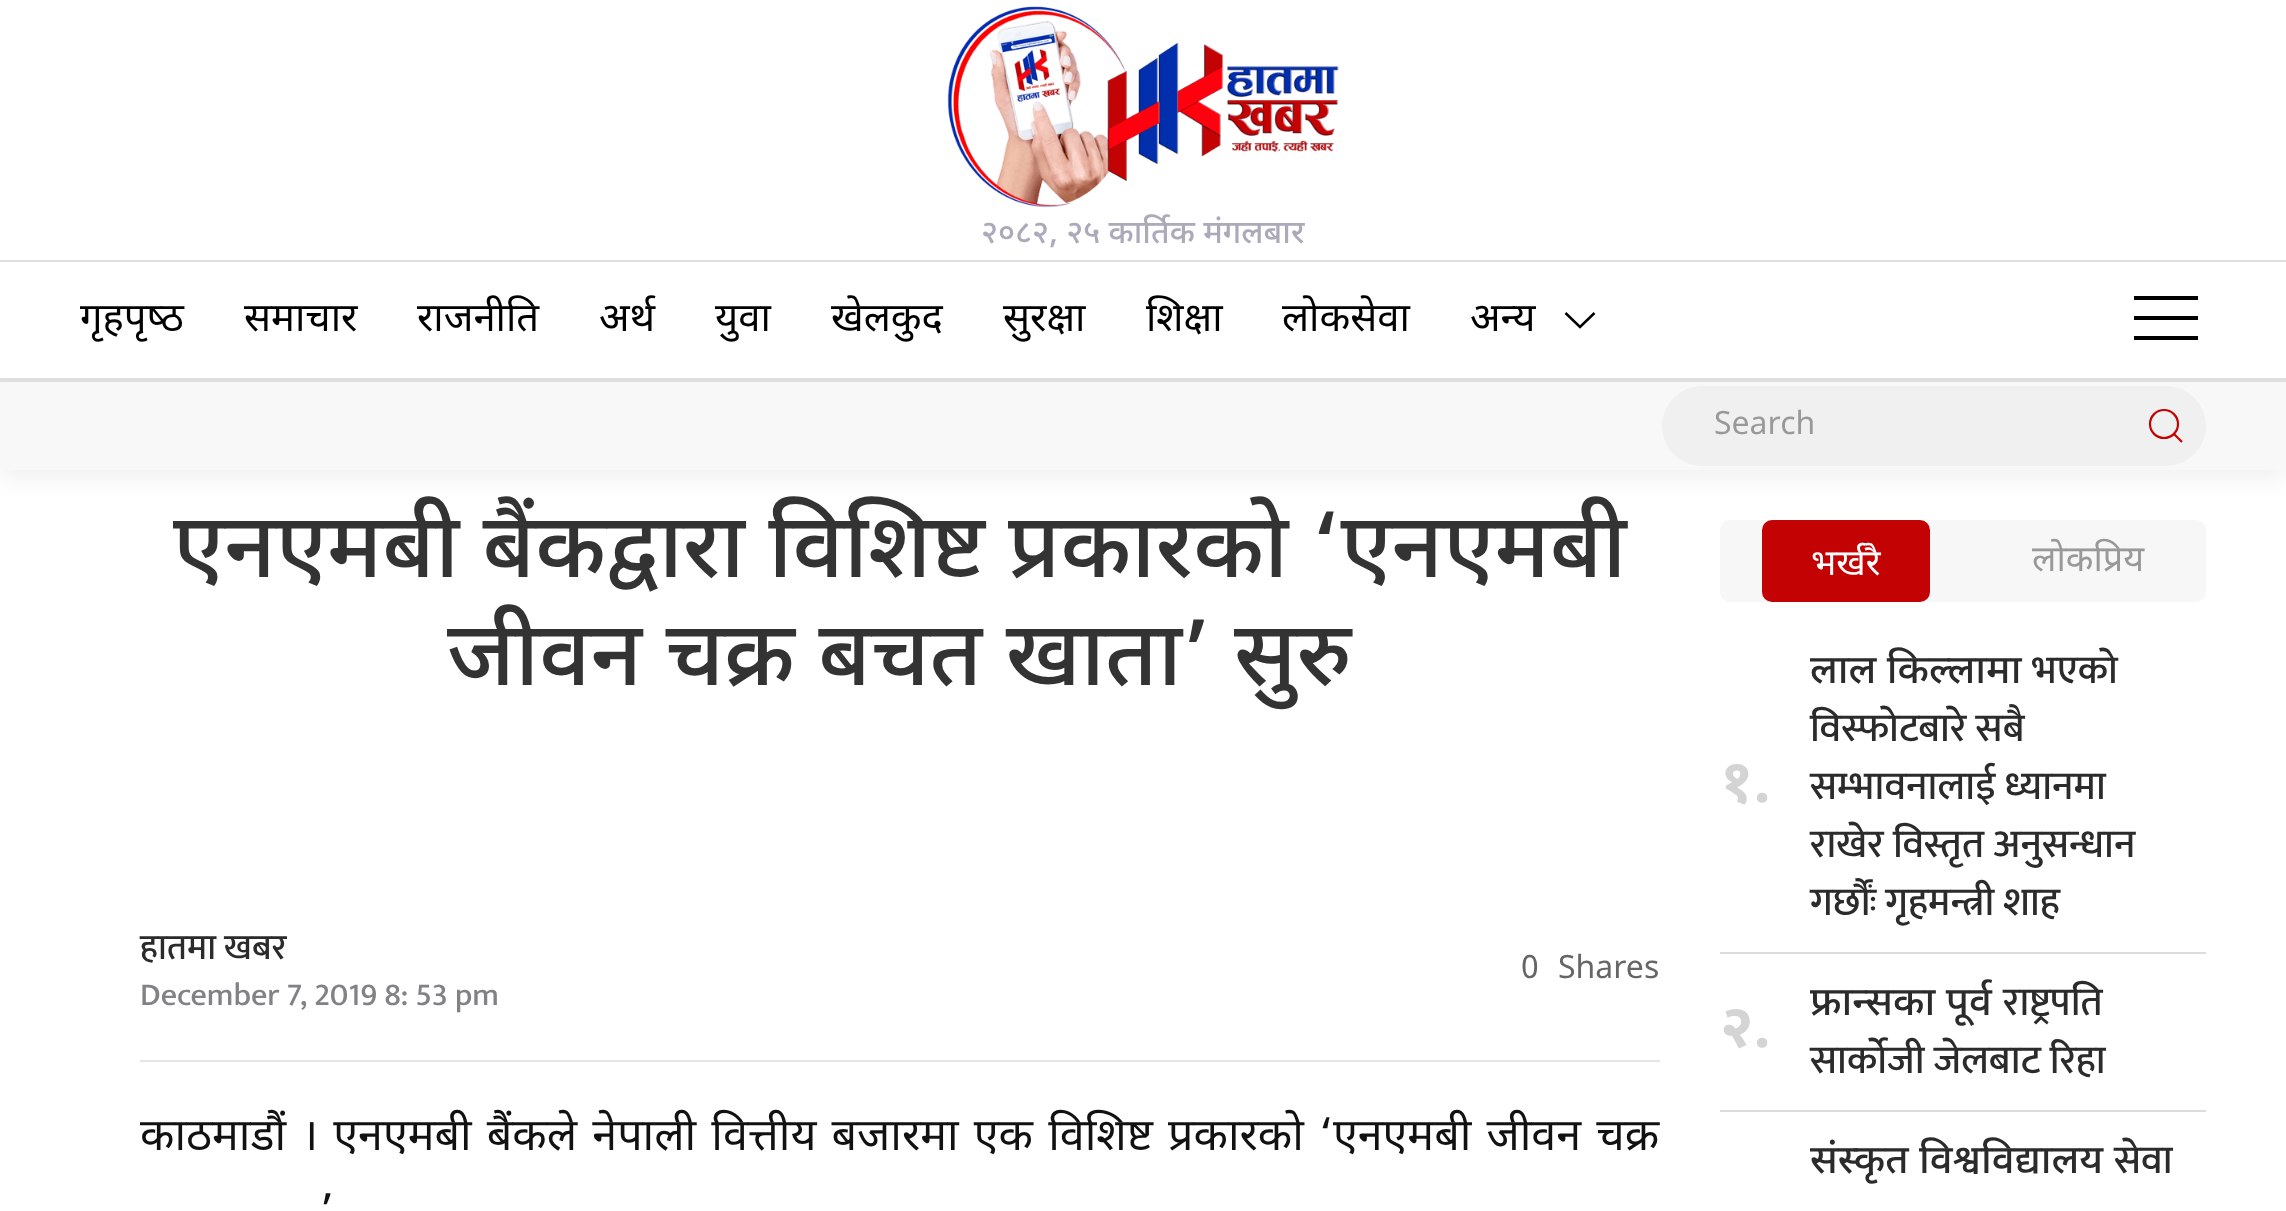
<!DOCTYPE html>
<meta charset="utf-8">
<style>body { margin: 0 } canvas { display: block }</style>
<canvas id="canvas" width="2286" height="1211"></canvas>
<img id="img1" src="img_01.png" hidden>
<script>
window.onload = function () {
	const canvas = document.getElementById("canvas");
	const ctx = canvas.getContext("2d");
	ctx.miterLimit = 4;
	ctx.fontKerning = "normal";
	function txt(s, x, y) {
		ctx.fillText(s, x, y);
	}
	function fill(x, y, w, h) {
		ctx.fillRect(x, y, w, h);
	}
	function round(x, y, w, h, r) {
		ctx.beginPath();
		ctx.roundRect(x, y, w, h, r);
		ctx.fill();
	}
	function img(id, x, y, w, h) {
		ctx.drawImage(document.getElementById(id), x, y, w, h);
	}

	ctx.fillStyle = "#FFFFFF";
	fill(0, 0, 2286, 1211);
	img("img1", 947, 6, 392, 202);
	ctx.fillStyle = "#DFDFDF";
	fill(0, 260, 2286, 2);
	ctx.fillStyle = "rgba(0, 0, 0, 0.05)";
	ctx.filter = "blur(10px)";
	ctx.beginPath();
	ctx.rect(0, 392, 2286, 88);
	ctx.fill();
	ctx.filter = "none";
	ctx.fillStyle = "#DFDFDF";
	fill(0, 378, 2286, 4);
	ctx.beginPath();
	ctx.moveTo(1594.5, 313);
	ctx.lineTo(1580, 327);
	ctx.lineTo(1565.5, 313);
	ctx.strokeStyle = "#000000";
	ctx.lineWidth = 2.5;
	ctx.stroke();
	ctx.fillStyle = "#000000";
	fill(2134, 296, 64, 4);
	fill(2134, 316, 64, 4);
	fill(2134, 336, 64, 4);
	ctx.fillStyle = "#F8F8F8";
	fill(0, 382, 2286, 88);
	ctx.fillStyle = "#F0F0F0";
	round(1662, 386, 544, 80, 40);
	ctx.beginPath();
	ctx.arc(2164, 424, 14, 0, Math.PI * 2);
	ctx.strokeStyle = "#C30303";
	ctx.lineWidth = 2.2;
	ctx.stroke();
	ctx.beginPath();
	ctx.moveTo(2174, 434);
	ctx.lineTo(2182, 442);
	ctx.closePath();
	ctx.stroke();
	ctx.fillStyle = "#E5E5E5";
	fill(140, 1060, 1520, 2);
	ctx.fillStyle = "#F7F7F7";
	round(1720, 520, 486, 82, 10);
	ctx.fillStyle = "#C30303";
	round(1762, 520, 168, 82, 10);
	ctx.fillStyle = "#DDDDDD";
	fill(1720, 952, 486, 2);
	fill(1720, 1110, 486, 2);
	ctx.font = "500 32px Noto Sans Devanagari";
	ctx.fillStyle = "#ABAABA";
	txt("२०८२, २५ कार्तिक मंगलबार", 981, 243);
	ctx.font = "40px Noto Sans Devanagari";
	ctx.fillStyle = "#000000";
	txt("गृहपृष्‍ठ", 80, 331);
	txt("समाचार", 244, 331);
	txt("राजनीति", 417, 331);
	txt("अर्थ", 599, 331);
	txt("युवा", 715, 331);
	txt("खेलकुद", 831, 331);
	txt("सुरक्षा", 1003, 331);
	txt("शिक्षा", 1146, 331);
	txt("लोकसेवा", 1282, 331);
	txt("अन्य", 1470, 331);
	ctx.font = "32px Noto Sans Devanagari";
	ctx.fillStyle = "#999999";
	txt("Search", 1714, 434);
	ctx.font = "500 90px Noto Sans Devanagari";
	ctx.fillStyle = "#333333";
	txt("एनएमबी बैंकद्वारा विशिष्ट प्रकारको ‘एनएमबी", 173, 577);
	txt("जीवन चक्र बचत खाता’ सुरु", 447, 685);
	ctx.font = "500 36px Mukta";
	ctx.fillStyle = "#2B2B2B";
	txt("हातमा खबर", 140, 959);
	ctx.font = "500 32px Mukta";
	ctx.fillStyle = "#818285";
	txt("December 7, 2019 8: 53 pm", 140, 1005);
	ctx.font = "32px Noto Sans Devanagari";
	ctx.fillStyle = "#666666";
	txt("0", 1521, 978);
	txt("Shares", 1558, 978);
	ctx.wordSpacing = "3.5px";
	ctx.font = "44.8px Noto Sans Devanagari";
	ctx.fillStyle = "#111111";
	txt("काठमाडौं । एनएमबी बैंकले नेपाली वित्तीय बजारमा एक विशिष्ट प्रकारको ‘एनएमबी जीवन चक्र", 140, 1150);
	ctx.wordSpacing = "3px";
	txt("’", 320, 1226);
	ctx.wordSpacing = "0px";
	ctx.font = "36px Noto Sans Devanagari";
	ctx.fillStyle = "#FFFFFF";
	txt("भर्खरै", 1811, 575);
	ctx.fillStyle = "#999999";
	txt("लोकप्रिय", 2032, 571);
	ctx.font = "bold 60px Noto Sans Devanagari";
	ctx.fillStyle = "#D4D4D4";
	txt("१.", 1720, 802);
	ctx.font = "500 40px Noto Sans Devanagari";
	ctx.fillStyle = "#2B2B2B";
	txt("लाल किल्लामा", 1810, 683);
	ctx.font = "500 40px Mukta";
	txt("भएको", 2032, 683);
	txt("विस्फोटबारे सबै", 1810, 741);
	txt("सम्भावनालाई ध्यानमा", 1810, 799);
	txt("राखेर विस्तृत अनुसन्धान", 1810, 857);
	txt("गर्छौंः गृहमन्त्री शाह", 1810, 915);
	ctx.font = "bold 60px Noto Sans Devanagari";
	ctx.fillStyle = "#D4D4D4";
	txt("२.", 1720, 1047);
	ctx.font = "500 40px Noto Sans Devanagari";
	ctx.fillStyle = "#2B2B2B";
	txt("फ्रान्सका पूर्व", 1810, 1015);
	ctx.font = "500 40px Mukta";
	txt("राष्ट्रपति", 2003, 1015);
	txt("सार्कोजी जेलबाट रिहा", 1810, 1073);
	ctx.font = "500 40px Noto Sans Devanagari";
	txt("संस्कृत विश्वविद्यालय", 1810, 1173);
	ctx.font = "500 40px Mukta";
	txt("सेवा", 2114, 1173);
};
</script>
